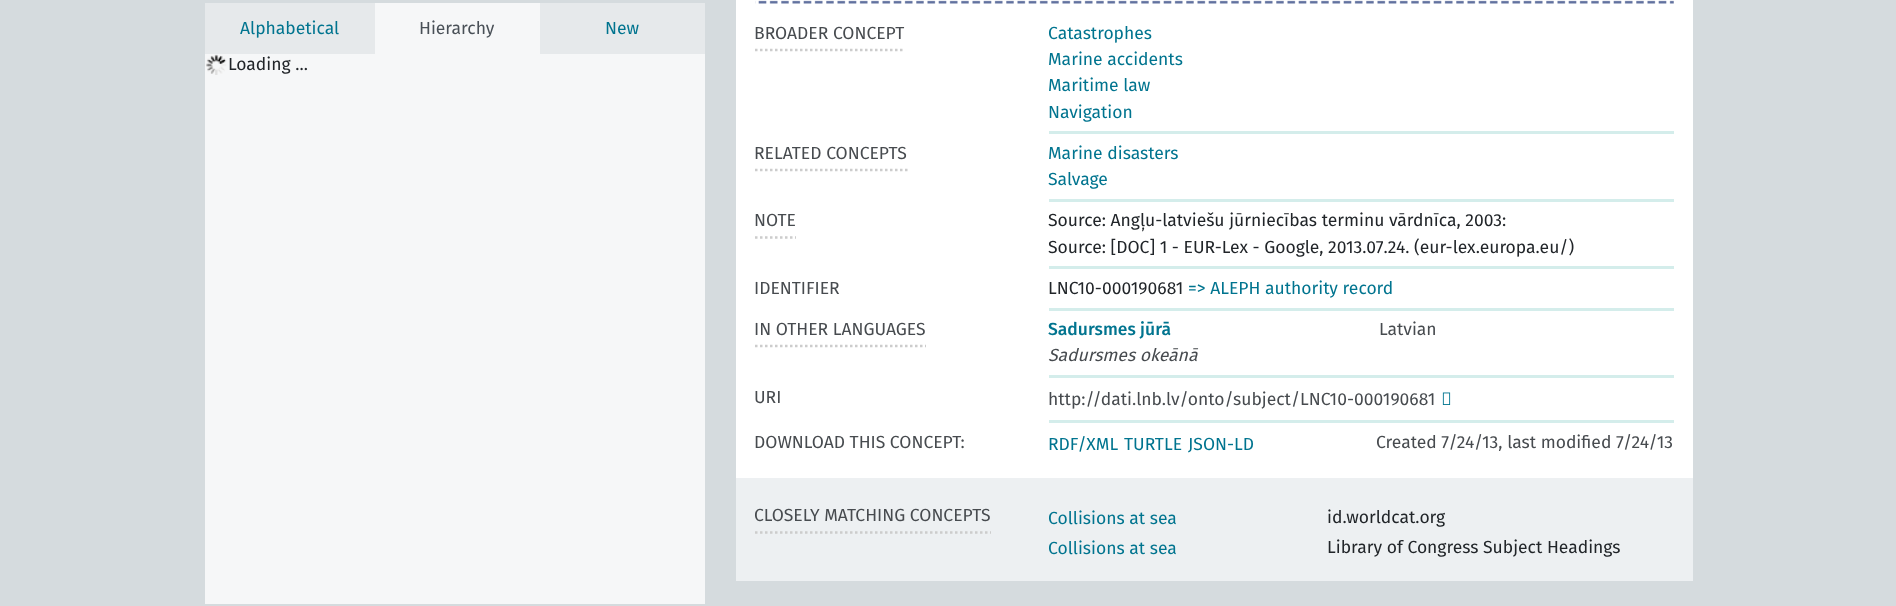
<!DOCTYPE html>
<meta charset="utf-8">
<style>body { margin: 0 } canvas { display: block }</style>
<canvas id="canvas" width="1896" height="606"></canvas>
<img id="img1" src="img_01.png" hidden>
<img id="img2" src="img_02.png" hidden>
<img id="img3" src="img_03.png" hidden>
<script>
window.onload = function () {
	const canvas = document.getElementById("canvas");
	const ctx = canvas.getContext("2d");
	ctx.miterLimit = 4;
	ctx.fontKerning = "normal";
	function txt(s, x, y) {
		ctx.fillText(s, x, y);
	}
	function fill(x, y, w, h) {
		ctx.fillRect(x, y, w, h);
	}
	function img(id, x, y, w, h) {
		ctx.drawImage(document.getElementById(id), x, y, w, h);
	}

	ctx.fillStyle = "#D5DBDE";
	fill(0, 0, 1896, 606);
	ctx.fillStyle = "#E6E9EB";
	fill(205, 3, 170, 51);
	ctx.fillStyle = "#F6F7F8";
	fill(375, 3, 165, 51);
	ctx.fillStyle = "#E6E9EB";
	fill(540, 3, 165, 51);
	ctx.fillStyle = "#F6F7F8";
	fill(205, 54, 500, 550);
	img("img1", 206, 54, 21, 21);
	ctx.fillStyle = "#FFFFFF";
	fill(736, 0, 957, 478);
	img("img2", 755, 0, 919, 4);
	ctx.beginPath();
	ctx.moveTo(755, 50);
	ctx.lineTo(905, 50);
	ctx.strokeStyle = "#CCCCCC";
	ctx.lineWidth = 2.5;
	ctx.setLineDash([2.5, 2.5]);
	ctx.stroke();
	ctx.fillStyle = "#D4EDEB";
	fill(1049, 131, 625, 3);
	ctx.beginPath();
	ctx.moveTo(755, 170);
	ctx.lineTo(907.5, 170);
	ctx.stroke();
	fill(1049, 199, 625, 3);
	ctx.beginPath();
	ctx.moveTo(755, 237.5);
	ctx.lineTo(796, 237.5);
	ctx.stroke();
	fill(1049, 266, 625, 3);
	fill(1049, 308, 625, 3);
	ctx.beginPath();
	ctx.moveTo(755, 346);
	ctx.lineTo(926, 346);
	ctx.stroke();
	fill(1049, 375, 625, 3);
	fill(1049, 420, 625, 3);
	img("img3", 1442, 392, 9, 13);
	ctx.fillStyle = "#EDF0F2";
	fill(736, 478, 957, 103);
	ctx.beginPath();
	ctx.moveTo(755, 532.5);
	ctx.lineTo(991, 532.5);
	ctx.stroke();
	ctx.font = "17.5px Fira Sans";
	ctx.fillStyle = "#00748F";
	txt("Alphabetical", 240, 34);
	ctx.fillStyle = "#495057";
	txt("Hierarchy", 419, 34);
	ctx.fillStyle = "#00748F";
	txt("New", 605, 34);
	ctx.fillStyle = "#212529";
	txt("Loading ...", 228, 70);
	ctx.fillStyle = "#474B4F";
	txt("BROADER CONCEPT", 754, 39);
	ctx.fillStyle = "#00748F";
	txt("Catastrophes", 1048, 39);
	txt("Marine accidents", 1048, 65);
	txt("Maritime law", 1048, 91);
	txt("Navigation", 1048, 118);
	ctx.fillStyle = "#474B4F";
	txt("RELATED CONCEPTS", 754, 159);
	ctx.fillStyle = "#00748F";
	txt("Marine disasters", 1048, 159);
	txt("Salvage", 1048, 185);
	ctx.fillStyle = "#474B4F";
	txt("NOTE", 754, 226);
	ctx.fillStyle = "#212529";
	txt("Source: Angļu-latviešu jūrniecības terminu vārdnīca, 2003:", 1048, 226);
	txt("Source: [DOC] 1 - EUR-Lex - Google, 2013.07.24. (eur-lex.europa.eu/)", 1048, 253);
	ctx.fillStyle = "#474B4F";
	txt("IDENTIFIER", 754, 294);
	ctx.fillStyle = "#212529";
	txt("LNC10-000190681", 1048, 294);
	ctx.fillStyle = "#00748F";
	txt("=> ALEPH authority record", 1188, 294);
	ctx.fillStyle = "#474B4F";
	txt("IN OTHER LANGUAGES", 754, 335);
	ctx.font = "500 17.5px Fira Sans";
	ctx.fillStyle = "#00748F";
	txt("Sadursmes jūrā", 1048, 335);
	ctx.font = "17.5px Fira Sans";
	ctx.fillStyle = "#474B4F";
	txt("Latvian", 1379, 335);
	ctx.font = "italic 17.5px Fira Sans";
	txt("Sadursmes okeānā", 1048, 361);
	ctx.font = "17.5px Fira Sans";
	txt("URI", 754, 403);
	txt("http://dati.lnb.lv/onto/subject/LNC10-000190681", 1048, 405);
	txt("DOWNLOAD THIS CONCEPT:", 754, 448);
	ctx.fillStyle = "#00748F";
	txt("RDF/XML", 1048, 450);
	txt("TURTLE", 1124, 450);
	txt("JSON-LD", 1188, 450);
	ctx.fillStyle = "#474B4F";
	txt("Created 7/24/13, last modified 7/24/13", 1376, 448);
	txt("CLOSELY MATCHING CONCEPTS", 754, 521);
	ctx.fillStyle = "#00748F";
	txt("Collisions at sea", 1048, 524);
	ctx.fillStyle = "#212529";
	txt("id.worldcat.org", 1327, 523);
	ctx.fillStyle = "#00748F";
	txt("Collisions at sea", 1048, 554);
	ctx.fillStyle = "#212529";
	txt("Library of Congress Subject Headings", 1327, 553);
};
</script>
